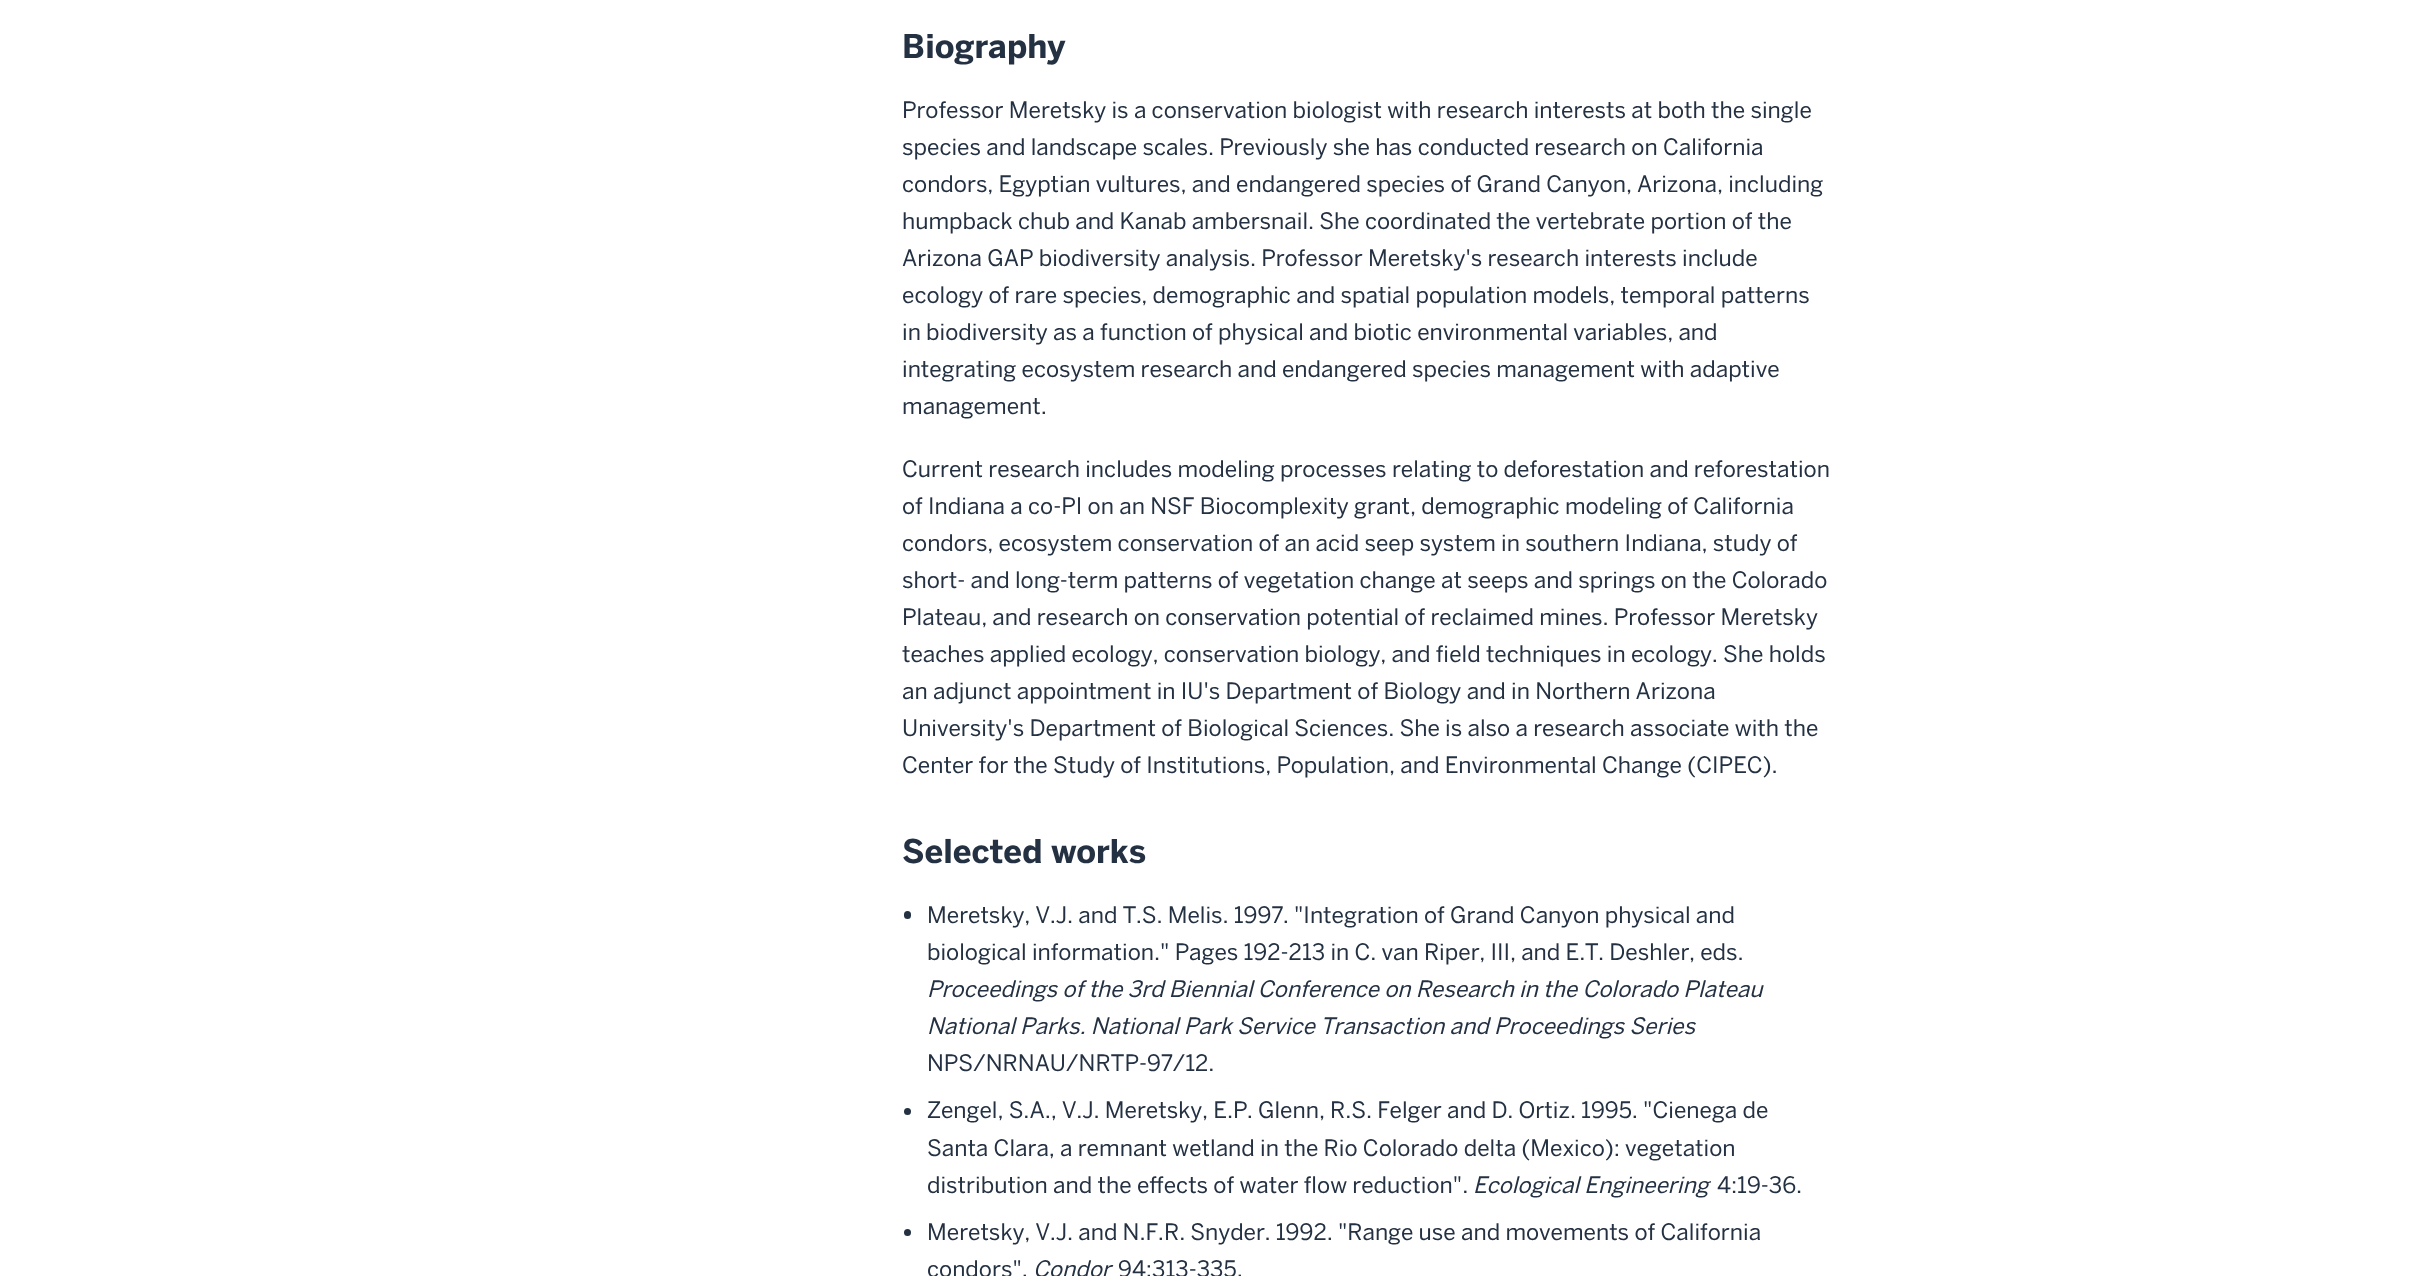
<!DOCTYPE html>
<meta charset="utf-8">
<style>body { margin: 0 } canvas { display: block }</style>
<canvas id="canvas" width="2413" height="1276"></canvas>
<script>
window.onload = function () {
	const canvas = document.getElementById("canvas");
	const ctx = canvas.getContext("2d");
	ctx.miterLimit = 4;
	ctx.fontKerning = "normal";
	function txt(s, x, y) {
		ctx.fillText(s, x, y);
	}
	function fill(x, y, w, h) {
		ctx.fillRect(x, y, w, h);
	}
	function round(x, y, w, h, r) {
		ctx.beginPath();
		ctx.roundRect(x, y, w, h, r);
		ctx.fill();
	}

	ctx.fillStyle = "#FFFFFF";
	fill(0, 0, 2413, 1276);
	ctx.fillStyle = "#243142";
	round(904, 911, 7, 8, 3.5);
	ctx.beginPath();
	ctx.arc(907.5, 1111.5, 3.5, 0, Math.PI * 2);
	ctx.fill();
	ctx.beginPath();
	ctx.arc(907.5, 1232.5, 3.5, 0, Math.PI * 2);
	ctx.fill();
	ctx.font = "bold 32.5px 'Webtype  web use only'";
	txt("Biography", 902, 58);
	ctx.font = "22.5px 'Webtype  web use only'";
	txt("Professor Meretsky is a conservation biologist with research interests at both the single", 902, 118);
	txt("species and landscape scales. Previously she has conducted research on California", 902, 155);
	txt("condors, Egyptian vultures, and endangered species of Grand Canyon, Arizona, including", 902, 192);
	txt("humpback chub and Kanab ambersnail. She coordinated the vertebrate portion of the", 902, 229);
	txt("Arizona GAP biodiversity analysis. Professor Meretsky's research interests include", 902, 266);
	txt("ecology of rare species, demographic and spatial population models, temporal patterns", 902, 303);
	txt("in biodiversity as a function of physical and biotic environmental variables, and", 902, 340);
	txt("integrating ecosystem research and endangered species management with adaptive", 902, 377);
	txt("management.", 902, 414);
	txt("Current research includes modeling processes relating to deforestation and reforestation", 902, 477);
	txt("of Indiana a co-PI on an NSF Biocomplexity grant, demographic modeling of California", 902, 514);
	txt("condors, ecosystem conservation of an acid seep system in southern Indiana, study of", 902, 551);
	txt("short- and long-term patterns of vegetation change at seeps and springs on the Colorado", 902, 588);
	txt("Plateau, and research on conservation potential of reclaimed mines. Professor Meretsky", 902, 625);
	txt("teaches applied ecology, conservation biology, and field techniques in ecology. She holds", 902, 662);
	txt("an adjunct appointment in IU's Department of Biology and in Northern Arizona", 902, 699);
	txt("University's Department of Biological Sciences. She is also a research associate with the", 902, 736);
	txt("Center for the Study of Institutions, Population, and Environmental Change (CIPEC).", 902, 773);
	ctx.font = "bold 32.5px 'Webtype  web use only'";
	txt("Selected works", 902, 863);
	ctx.font = "22.5px 'Webtype  web use only'";
	txt("Meretsky, V.J. and T.S. Melis. 1997. \"Integration of Grand Canyon physical and", 927, 923);
	txt("biological information.\" Pages 192-213 in C. van Riper, III, and E.T. Deshler, eds.", 927, 960);
	ctx.font = "italic 22.5px 'Webtype  web use only'";
	txt("Proceedings of the 3rd Biennial Conference on Research in the Colorado Plateau", 927, 997);
	txt("National Parks. National Park Service Transaction and Proceedings Series", 927, 1034);
	ctx.font = "22.5px 'Webtype  web use only'";
	txt("NPS/NRNAU/NRTP-97/12.", 927, 1071);
	txt("Zengel, S.A., V.J. Meretsky, E.P. Glenn, R.S. Felger and D. Ortiz. 1995. \"Cienega de", 927, 1118);
	txt("Santa Clara, a remnant wetland in the Rio Colorado delta (Mexico): vegetation", 927, 1156);
	txt("distribution and the effects of water flow reduction\".", 927, 1193);
	ctx.font = "italic 22.5px 'Webtype  web use only'";
	txt("Ecological Engineering", 1473, 1193);
	ctx.font = "22.5px 'Webtype  web use only'";
	txt("4:19-36.", 1717, 1193);
	txt("Meretsky, V.J. and N.F.R. Snyder. 1992. \"Range use and movements of California", 927, 1240);
	txt("condors\".", 927, 1277);
	ctx.font = "italic 22.5px 'Webtype  web use only'";
	txt("Condor", 1033, 1277);
	ctx.font = "22.5px 'Webtype  web use only'";
	txt("94:313-335.", 1118, 1277);
};
</script>
